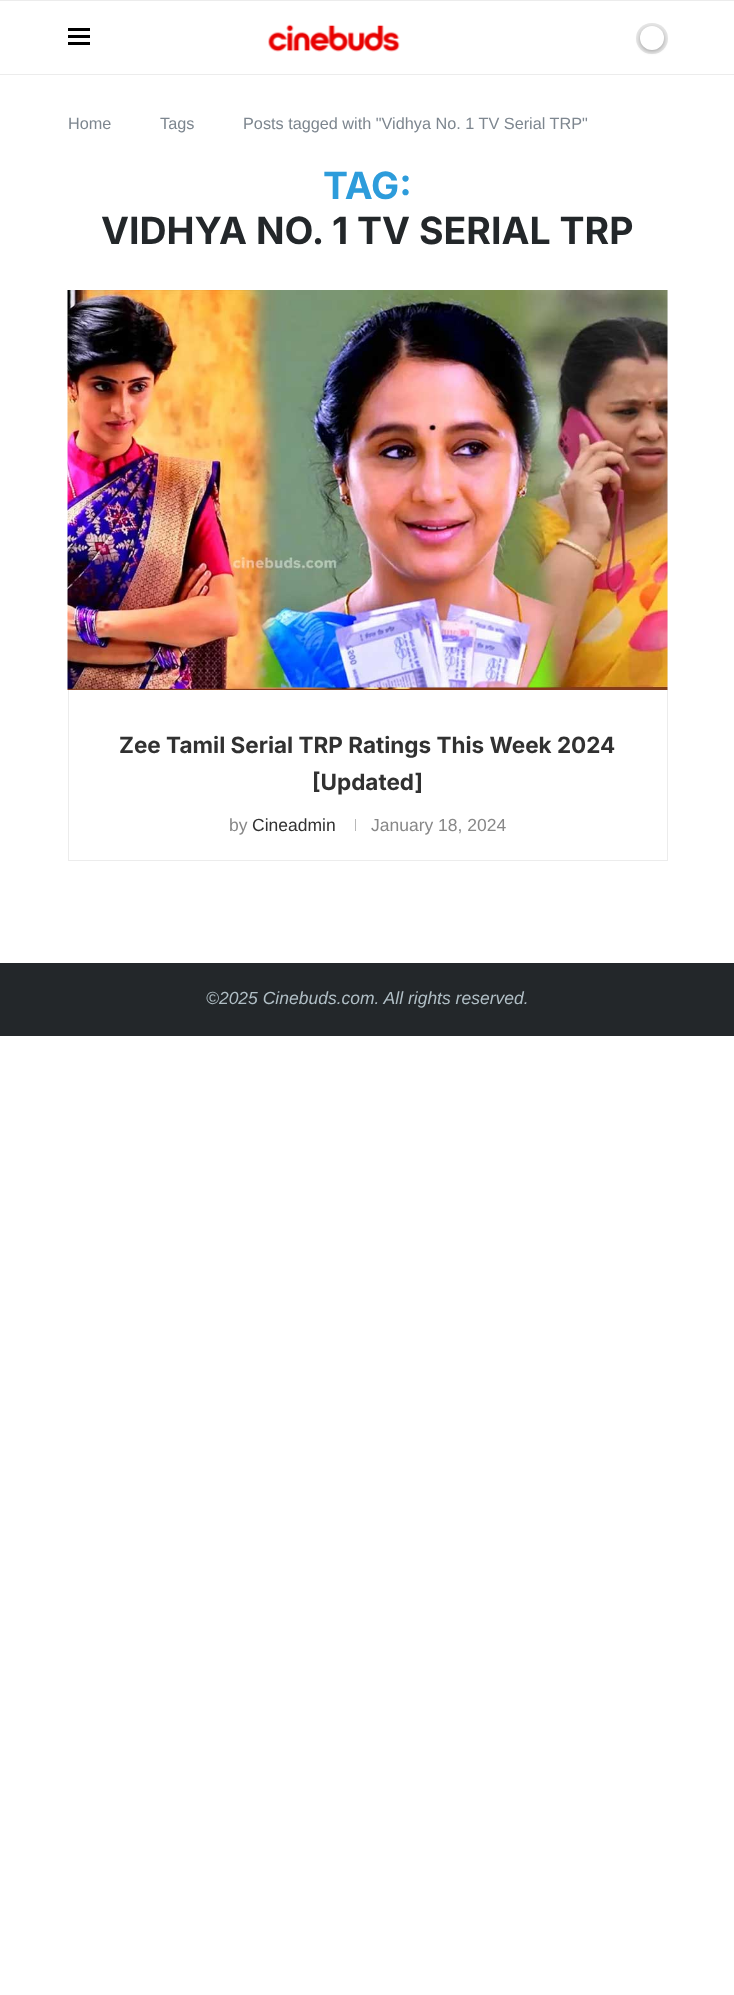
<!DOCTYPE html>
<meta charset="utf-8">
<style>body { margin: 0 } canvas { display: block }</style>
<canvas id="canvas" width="734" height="1995"></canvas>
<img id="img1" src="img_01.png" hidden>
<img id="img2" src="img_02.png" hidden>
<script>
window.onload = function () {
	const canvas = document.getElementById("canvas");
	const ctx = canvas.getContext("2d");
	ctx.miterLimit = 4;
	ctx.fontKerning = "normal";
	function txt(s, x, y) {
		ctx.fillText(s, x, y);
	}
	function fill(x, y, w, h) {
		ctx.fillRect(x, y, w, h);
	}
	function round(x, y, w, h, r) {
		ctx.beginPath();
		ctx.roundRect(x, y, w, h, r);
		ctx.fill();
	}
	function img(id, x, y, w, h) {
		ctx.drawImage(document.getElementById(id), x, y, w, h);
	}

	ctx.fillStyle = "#FFFFFF";
	fill(0, 0, 734, 1995);
	ctx.fillStyle = "#ECECEC";
	fill(0, 0, 734, 1);
	fill(0, 74, 734, 1);
	ctx.fillStyle = "#000000";
	fill(68, 28, 22, 3);
	fill(68, 35, 22, 3);
	fill(68, 42, 22, 3);
	img("img1", 268, 24, 132, 28);
	ctx.fillStyle = "#E6E6E6";
	round(636, 23, 32, 31, 15.5);
	ctx.fillStyle = "rgba(0, 0, 0, 0.3)";
	ctx.filter = "blur(2px)";
	ctx.beginPath();
	ctx.roundRect(640, 28, 24, 23, 11.5);
	ctx.fill();
	ctx.filter = "none";
	ctx.fillStyle = "#FFFFFF";
	ctx.beginPath();
	ctx.arc(652, 38, 12, 0, Math.PI * 2);
	ctx.fill();
	ctx.strokeStyle = "#ECECEC";
	ctx.strokeRect(68.5, 290.5, 599, 570);
	ctx.fillStyle = "#F5F5F5";
	fill(667, 290, 1, 400);
	img("img2", 67, 290, 601, 400);
	ctx.fillStyle = "#B8B8B8";
	fill(355, 819, 1, 12);
	ctx.fillStyle = "#23272A";
	fill(0, 963, 734, 73);
	ctx.font = "16.25px Liberation Sans";
	ctx.fillStyle = "#7D868F";
	txt("Home", 68, 129);
	txt("Tags", 160, 129);
	txt("Posts tagged with \"Vidhya No. 1 TV Serial TRP\"", 243, 129);
	ctx.font = "bold 37.5px Inter";
	ctx.fillStyle = "#2D9CDB";
	txt("TAG:", 323, 199);
	ctx.fillStyle = "#23272A";
	txt("VIDHYA NO. 1 TV SERIAL TRP", 101, 244);
	ctx.font = "bold 22.5px Inter";
	ctx.fillStyle = "#313131";
	txt("Zee Tamil Serial TRP Ratings This Week 2024", 119, 753);
	txt("[Updated]", 312, 790);
	ctx.font = "17.5px Liberation Sans";
	ctx.fillStyle = "#888888";
	txt("by", 229, 831);
	ctx.fillStyle = "#313131";
	txt("Cineadmin", 252, 831);
	ctx.fillStyle = "#888888";
	txt("January 18, 2024", 371, 831);
	ctx.font = "italic 17.5px Liberation Sans";
	ctx.fillStyle = "#B0BEC5";
	txt("©2025 Cinebuds.com. All rights reserved.", 206, 1004);
};
</script>
